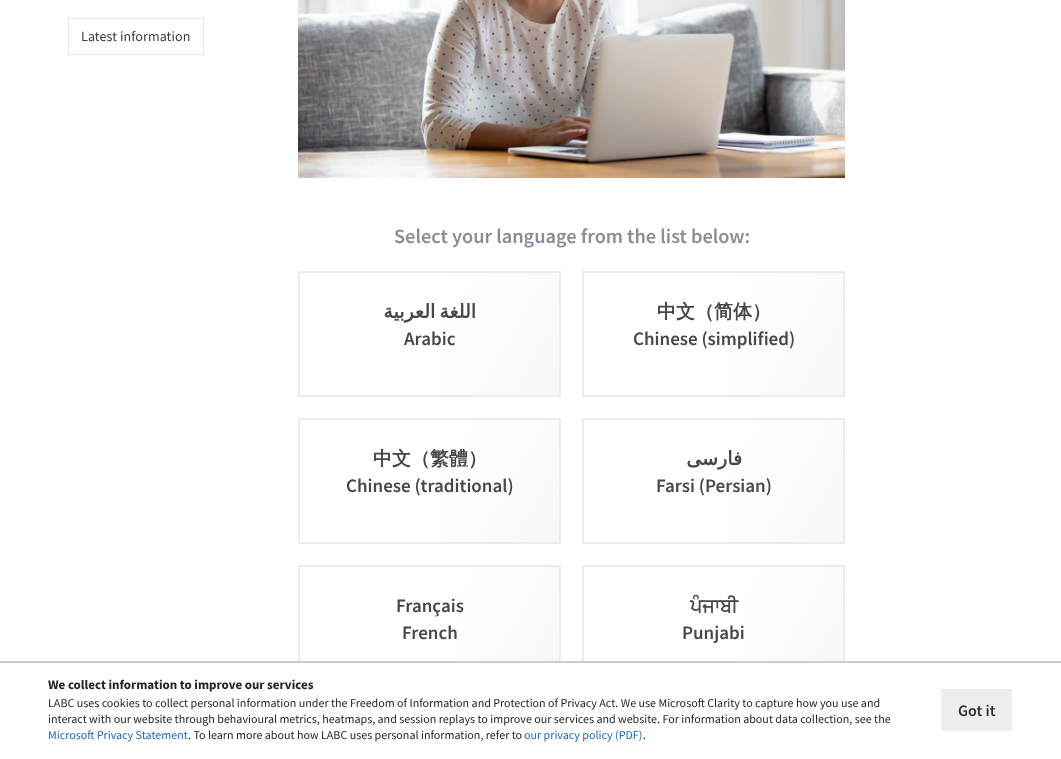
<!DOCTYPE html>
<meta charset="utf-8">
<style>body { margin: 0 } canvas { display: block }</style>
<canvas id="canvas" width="1061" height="759"></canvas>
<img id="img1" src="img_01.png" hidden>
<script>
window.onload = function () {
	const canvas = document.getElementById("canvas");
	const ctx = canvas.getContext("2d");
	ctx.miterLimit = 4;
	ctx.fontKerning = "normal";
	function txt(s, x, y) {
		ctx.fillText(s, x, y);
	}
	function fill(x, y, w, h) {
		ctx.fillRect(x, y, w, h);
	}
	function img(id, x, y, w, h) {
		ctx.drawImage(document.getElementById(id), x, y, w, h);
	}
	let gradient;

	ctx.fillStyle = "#FFFFFF";
	fill(0, 0, 1061, 759);
	ctx.strokeStyle = "#E7E7E7";
	ctx.strokeRect(68.5, 18.5, 135, 36);
	img("img1", 298, 0, 547, 178);
	gradient = ctx.createLinearGradient(306, 263, 553, 405);
	gradient.addColorStop(0.45, "#FFFFFF");
	gradient.addColorStop(1, "#F8F8F8");
	ctx.fillStyle = gradient;
	fill(443, 273, 116, 122);
	ctx.strokeStyle = "#ECECEC";
	ctx.lineWidth = 2;
	ctx.strokeRect(299, 272, 261, 124);
	gradient = ctx.createLinearGradient(590, 263, 837, 405);
	gradient.addColorStop(0.45, "#FFFFFF");
	gradient.addColorStop(1, "#F8F8F8");
	ctx.fillStyle = gradient;
	fill(727, 273, 116, 122);
	ctx.strokeRect(583, 272, 261, 124);
	gradient = ctx.createLinearGradient(306, 410, 553, 552);
	gradient.addColorStop(0.45, "#FFFFFF");
	gradient.addColorStop(1, "#F8F8F8");
	ctx.fillStyle = gradient;
	fill(443, 420, 116, 122);
	ctx.strokeRect(299, 419, 261, 124);
	gradient = ctx.createLinearGradient(590, 410, 837, 552);
	gradient.addColorStop(0.45, "#FFFFFF");
	gradient.addColorStop(1, "#F8F8F8");
	ctx.fillStyle = gradient;
	fill(727, 420, 116, 122);
	ctx.strokeRect(583, 419, 261, 124);
	gradient = ctx.createLinearGradient(306, 557, 553, 699);
	gradient.addColorStop(0.45, "#FFFFFF");
	gradient.addColorStop(1, "#F8F8F8");
	ctx.fillStyle = gradient;
	fill(459, 567, 100, 94);
	ctx.strokeRect(299, 566, 261, 124);
	gradient = ctx.createLinearGradient(590, 557, 837, 699);
	gradient.addColorStop(0.45, "#FFFFFF");
	gradient.addColorStop(1, "#F8F8F8");
	ctx.fillStyle = gradient;
	fill(743, 567, 100, 94);
	ctx.strokeRect(583, 566, 261, 124);
	ctx.fillStyle = "#FFFFFF";
	fill(298, 663, 547, 28);
	ctx.fillStyle = "#CCCCCC";
	fill(0, 661, 1061, 2);
	ctx.fillStyle = "#EEEEEE";
	fill(941, 689, 71, 42);
	ctx.letterSpacing = "0.1px";
	ctx.font = "14px Source Sans Pro";
	ctx.fillStyle = "#343E47";
	txt("Latest information", 81, 41);
	ctx.letterSpacing = "0px";
	ctx.font = "600 20.4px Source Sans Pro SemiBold";
	ctx.fillStyle = "#8A8C9A";
	txt("Select your language from the list below:", 394, 243);
	ctx.wordSpacing = "-2px";
	ctx.direction = "rtl";
	ctx.font = "bold 19px DejaVu Sans";
	ctx.fillStyle = "#474747";
	txt("اللغة العربية", 476, 318);
	ctx.wordSpacing = "0px";
	ctx.direction = "ltr";
	ctx.font = "600 19px Source Sans Pro SemiBold";
	txt("Arabic", 404, 345);
	ctx.font = "bold 19px WenQuanYi Zen Hei";
	txt("中文（简体）", 657, 318);
	ctx.font = "600 19px Source Sans Pro SemiBold";
	txt("Chinese (simplified)", 633, 345);
	ctx.font = "bold 19px WenQuanYi Zen Hei";
	txt("中文（繁體）", 373, 465);
	ctx.font = "600 19px Source Sans Pro SemiBold";
	txt("Chinese (traditional)", 346, 492);
	ctx.direction = "rtl";
	ctx.font = "bold 19px DejaVu Sans";
	txt("فارسی", 742, 465);
	ctx.direction = "ltr";
	ctx.font = "600 19px Source Sans Pro SemiBold";
	txt("Farsi (Persian)", 656, 492);
	txt("Français", 396, 612);
	txt("French", 402, 639);
	ctx.font = "bold 19px FreeSans";
	txt("ਪੰਜਾਬੀ", 690, 612);
	ctx.font = "600 19px Source Sans Pro SemiBold";
	txt("Punjabi", 682, 639);
	ctx.font = "bold 13px Source Sans Pro";
	ctx.fillStyle = "#252525";
	txt("We collect information to improve our services", 48, 689);
	ctx.font = "12px Source Sans Pro";
	txt("LABC uses cookies to collect personal information under the Freedom of Information and Protection of Privacy Act. We use Microsoft Clarity to capture how you use and", 48, 707);
	txt("interact with our website through behavioural metrics, heatmaps, and session replays to improve our services and website. For information about data collection, see the", 48, 723);
	ctx.fillStyle = "#1D67B5";
	txt("Microsoft Privacy Statement", 48, 739);
	ctx.fillStyle = "#252525";
	txt(". To learn more about how LABC uses personal information, refer to", 188, 739);
	ctx.fillStyle = "#1D67B5";
	txt("our privacy policy (PDF)", 524, 739);
	ctx.fillStyle = "#252525";
	txt(".", 643, 739);
	ctx.font = "600 16px Source Sans Pro SemiBold";
	ctx.fillStyle = "#313131";
	txt("Got it", 958, 716);
};
</script>
